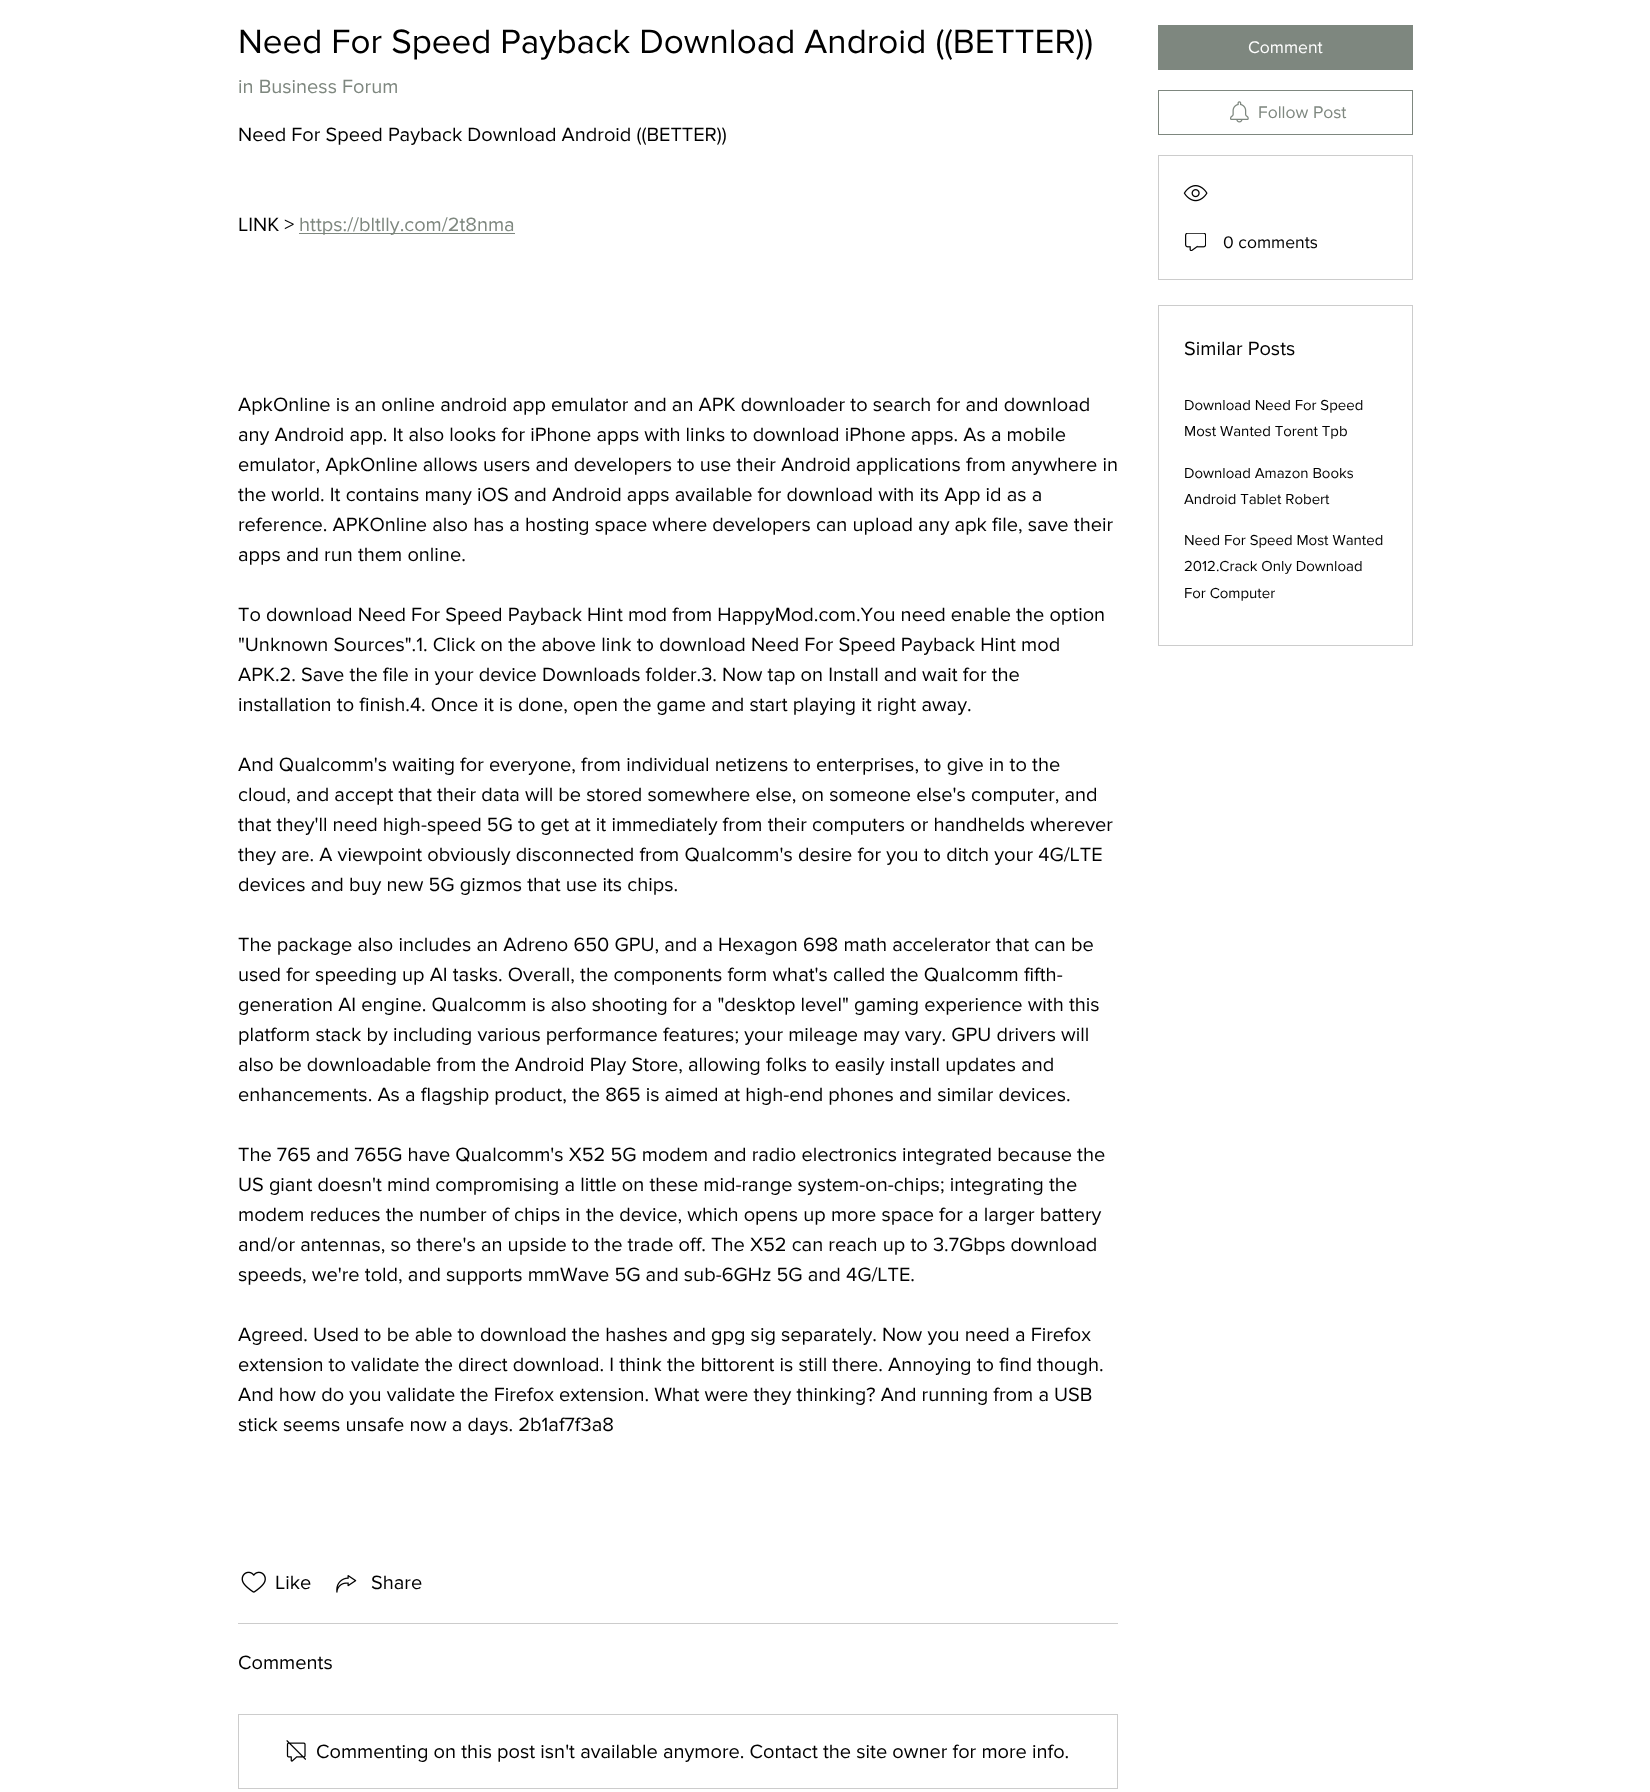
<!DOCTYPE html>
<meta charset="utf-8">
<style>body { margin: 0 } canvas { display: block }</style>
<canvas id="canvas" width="1650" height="1792"></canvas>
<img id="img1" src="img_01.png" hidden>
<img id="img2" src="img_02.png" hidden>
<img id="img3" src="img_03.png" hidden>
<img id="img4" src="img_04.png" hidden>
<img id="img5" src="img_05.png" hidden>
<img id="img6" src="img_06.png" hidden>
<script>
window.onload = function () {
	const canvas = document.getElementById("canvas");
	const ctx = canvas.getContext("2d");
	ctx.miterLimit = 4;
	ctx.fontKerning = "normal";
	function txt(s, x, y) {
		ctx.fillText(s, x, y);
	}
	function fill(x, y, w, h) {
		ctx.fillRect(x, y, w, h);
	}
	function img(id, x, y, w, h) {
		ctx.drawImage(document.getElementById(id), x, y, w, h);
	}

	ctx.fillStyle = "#FFFFFF";
	fill(0, 0, 1650, 1792);
	ctx.fillStyle = "#7E877F";
	fill(299, 233, 216, 1);
	img("img1", 241, 1571, 25, 22);
	img("img2", 336, 1575, 21, 18);
	ctx.fillStyle = "#CCCCCC";
	fill(238, 1623, 880, 1);
	ctx.strokeStyle = "#CCCCCC";
	ctx.strokeRect(238.5, 1714.5, 879, 74);
	img("img3", 286, 1740, 20, 22);
	ctx.fillStyle = "#7E877F";
	fill(1158, 25, 255, 45);
	ctx.strokeStyle = "#7E877F";
	ctx.strokeRect(1158.5, 90.5, 254, 44);
	img("img4", 1230, 101, 19, 22);
	ctx.strokeStyle = "#CCCCCC";
	ctx.strokeRect(1158.5, 155.5, 254, 124);
	img("img5", 1183, 185, 25, 17);
	img("img6", 1185, 233, 21, 18);
	ctx.strokeRect(1158.5, 305.5, 254, 340);
	ctx.font = "35px 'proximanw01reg'";
	ctx.fillStyle = "#000000";
	txt("Need For Speed Payback Download Android ((BETTER))", 238, 53);
	ctx.font = "20px 'proximanw01reg'";
	ctx.fillStyle = "#7E877F";
	txt("in Business Forum", 238, 93);
	ctx.fillStyle = "#000000";
	txt("Need For Speed Payback Download Android ((BETTER))", 238, 141);
	txt("LINK >", 238, 231);
	ctx.fillStyle = "#7E877F";
	txt("https://bltlly.com/2t8nma", 299, 231);
	ctx.fillStyle = "#000000";
	txt("ApkOnline is an online android app emulator and an APK downloader to search for and download", 238, 411);
	txt("any Android app. It also looks for iPhone apps with links to download iPhone apps. As a mobile", 238, 441);
	txt("emulator, ApkOnline allows users and developers to use their Android applications from anywhere in", 238, 471);
	txt("the world. It contains many iOS and Android apps available for download with its App id as a", 238, 501);
	txt("reference. APKOnline also has a hosting space where developers can upload any apk file, save their", 238, 531);
	txt("apps and run them online.", 238, 561);
	txt("To download Need For Speed Payback Hint mod from HappyMod.com.You need enable the option", 238, 621);
	txt("\"Unknown Sources\".1. Click on the above link to download Need For Speed Payback Hint mod", 238, 651);
	txt("APK.2. Save the file in your device Downloads folder.3. Now tap on Install and wait for the", 238, 681);
	txt("installation to finish.4. Once it is done, open the game and start playing it right away.", 238, 711);
	txt("And Qualcomm's waiting for everyone, from individual netizens to enterprises, to give in to the", 238, 771);
	txt("cloud, and accept that their data will be stored somewhere else, on someone else's computer, and", 238, 801);
	txt("that they'll need high-speed 5G to get at it immediately from their computers or handhelds wherever", 238, 831);
	txt("they are. A viewpoint obviously disconnected from Qualcomm's desire for you to ditch your 4G/LTE", 238, 861);
	txt("devices and buy new 5G gizmos that use its chips.", 238, 891);
	txt("The package also includes an Adreno 650 GPU, and a Hexagon 698 math accelerator that can be", 238, 951);
	txt("used for speeding up AI tasks. Overall, the components form what's called the Qualcomm fifth-", 238, 981);
	txt("generation AI engine. Qualcomm is also shooting for a \"desktop level\" gaming experience with this", 238, 1011);
	txt("platform stack by including various performance features; your mileage may vary. GPU drivers will", 238, 1041);
	txt("also be downloadable from the Android Play Store, allowing folks to easily install updates and", 238, 1071);
	txt("enhancements. As a flagship product, the 865 is aimed at high-end phones and similar devices.", 238, 1101);
	txt("The 765 and 765G have Qualcomm's X52 5G modem and radio electronics integrated because the", 238, 1161);
	txt("US giant doesn't mind compromising a little on these mid-range system-on-chips; integrating the", 238, 1191);
	txt("modem reduces the number of chips in the device, which opens up more space for a larger battery", 238, 1221);
	txt("and/or antennas, so there's an upside to the trade off. The X52 can reach up to 3.7Gbps download", 238, 1251);
	txt("speeds, we're told, and supports mmWave 5G and sub-6GHz 5G and 4G/LTE.", 238, 1281);
	txt("Agreed. Used to be able to download the hashes and gpg sig separately. Now you need a Firefox", 238, 1341);
	txt("extension to validate the direct download. I think the bittorent is still there. Annoying to find though.", 238, 1371);
	txt("And how do you validate the Firefox extension. What were they thinking? And running from a USB", 238, 1401);
	txt("stick seems unsafe now a days. 2b1af7f3a8", 238, 1431);
	txt("Like", 275, 1589);
	txt("Share", 371, 1589);
	txt("Comments", 238, 1669);
	txt("Commenting on this post isn't available anymore. Contact the site owner for more info.", 316, 1758);
	ctx.font = "17.5px 'proximanw01reg'";
	ctx.fillStyle = "#FFFFFF";
	txt("Comment", 1248, 53);
	ctx.fillStyle = "#7E877F";
	txt("Follow Post", 1258, 118);
	ctx.fillStyle = "#000000";
	txt("0 comments", 1223, 248);
	ctx.font = "20px 'proximanw01reg'";
	txt("Similar Posts", 1184, 355);
	ctx.font = "15px 'proximanw01reg'";
	txt("Download Need For Speed", 1184, 410);
	txt("Most Wanted Torent Tpb", 1184, 436);
	txt("Download Amazon Books", 1184, 478);
	txt("Android Tablet Robert", 1184, 504);
	txt("Need For Speed Most Wanted", 1184, 545);
	txt("2012.Crack Only Download", 1184, 571);
	txt("For Computer", 1184, 598);
};
</script>
